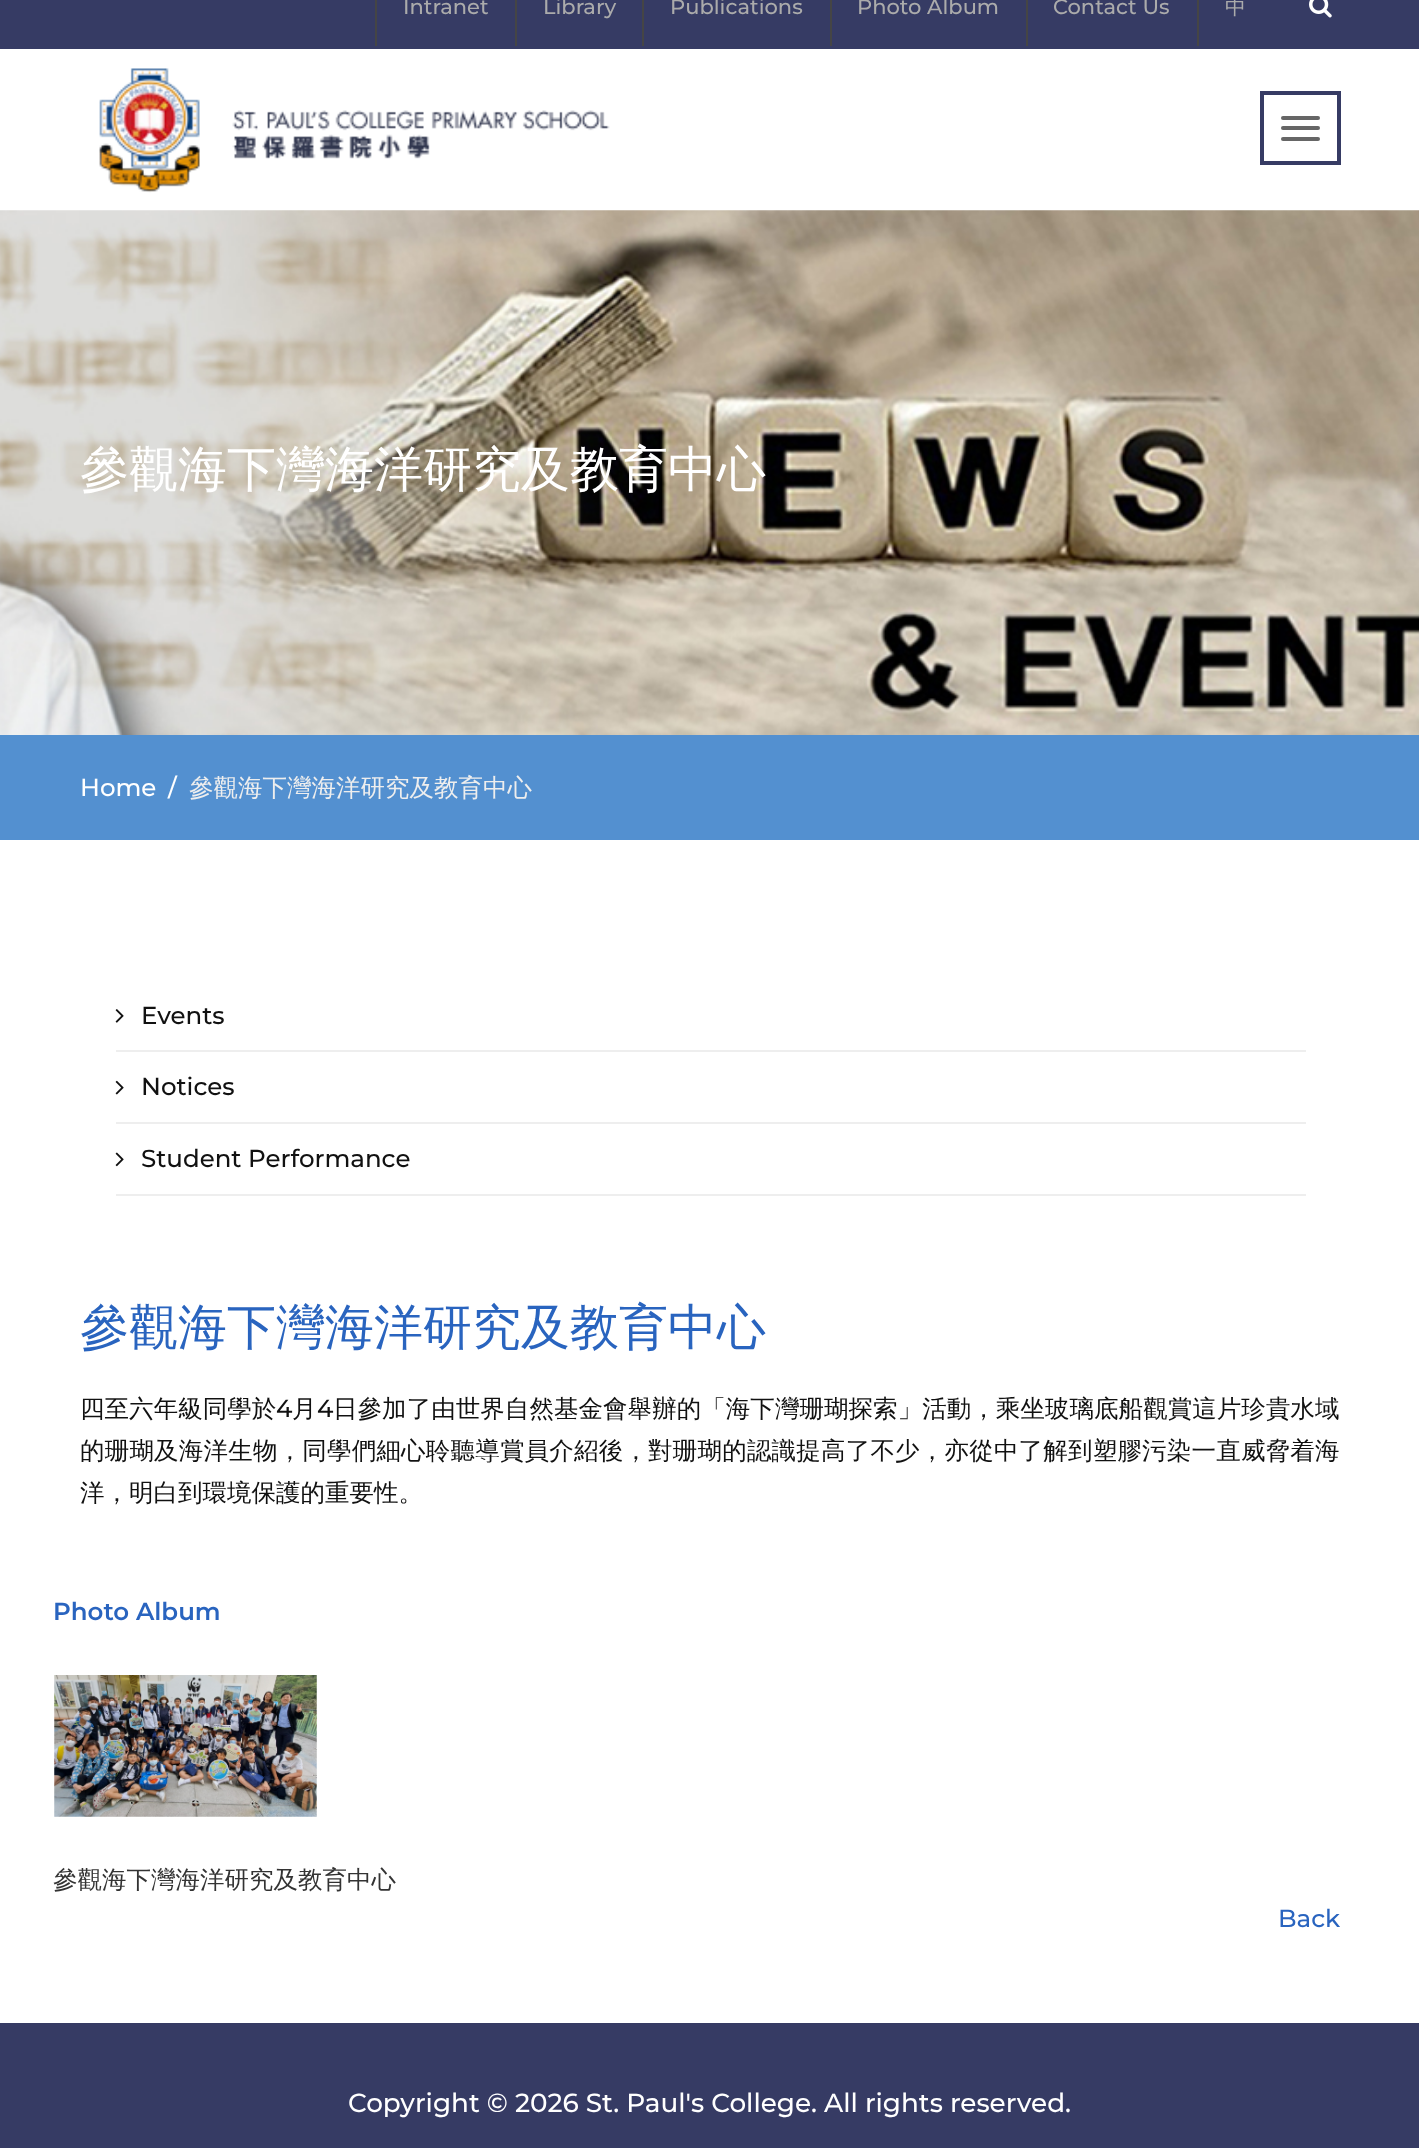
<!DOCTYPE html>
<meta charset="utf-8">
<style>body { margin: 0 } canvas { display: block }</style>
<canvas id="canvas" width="1419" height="2148"></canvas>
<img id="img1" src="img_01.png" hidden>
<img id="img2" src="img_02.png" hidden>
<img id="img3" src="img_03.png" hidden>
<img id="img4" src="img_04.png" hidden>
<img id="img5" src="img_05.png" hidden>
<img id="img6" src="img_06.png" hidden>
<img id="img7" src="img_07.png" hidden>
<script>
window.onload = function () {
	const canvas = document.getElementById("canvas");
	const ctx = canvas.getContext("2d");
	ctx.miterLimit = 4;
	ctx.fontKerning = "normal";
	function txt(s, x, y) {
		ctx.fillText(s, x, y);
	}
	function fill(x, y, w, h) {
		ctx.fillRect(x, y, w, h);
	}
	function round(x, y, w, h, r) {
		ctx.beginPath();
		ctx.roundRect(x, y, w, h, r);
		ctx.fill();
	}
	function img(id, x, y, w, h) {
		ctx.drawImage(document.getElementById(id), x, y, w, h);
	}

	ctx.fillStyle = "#FFFFFF";
	fill(0, 0, 1419, 2148);
	ctx.fillStyle = "#363B64";
	fill(0, 0, 1419, 49);
	ctx.fillStyle = "#454545";
	fill(515, 0, 2, 46);
	fill(375, 0, 2, 46);
	fill(642, 0, 2, 46);
	fill(830, 0, 2, 46);
	fill(1026, 0, 2, 46);
	fill(1197, 0, 2, 46);
	img("img1", 1309, 0, 23, 18);
	img("img2", 99, 68, 511, 125);
	ctx.strokeStyle = "#363B64";
	ctx.lineWidth = 4;
	ctx.strokeRect(1262, 93, 77, 70);
	ctx.fillStyle = "#666666";
	round(1281, 116, 39, 4, 2);
	round(1281, 126, 39, 4, 2);
	round(1281, 137, 39, 4, 2);
	img("img3", 0, 210, 1419, 525);
	ctx.fillStyle = "#5390D0";
	fill(0, 735, 1419, 105);
	ctx.fillStyle = "#EEEEEE";
	fill(116, 1050, 1190, 2);
	img("img4", 115, 1009, 9, 14);
	fill(116, 1122, 1190, 2);
	img("img5", 115, 1080, 9, 15);
	fill(116, 1194, 1190, 2);
	img("img6", 115, 1152, 9, 15);
	img("img7", 54, 1675, 263, 142);
	ctx.fillStyle = "#363B64";
	fill(0, 2023, 1419, 125);
	ctx.font = "500 21px Montserrat";
	ctx.fillStyle = "#ABABAB";
	txt("Intranet", 403, 14);
	txt("Library", 543, 14);
	txt("Publications", 670, 14);
	txt("Photo Album", 857, 14);
	txt("Contact Us", 1053, 14);
	ctx.font = "500 21px WenQuanYi Zen Hei";
	txt("中", 1225, 14);
	ctx.font = "500 49px WenQuanYi Zen Hei";
	ctx.fillStyle = "#FFFFFF";
	txt("參觀海下灣海洋研究及教育中心", 80, 486);
	ctx.font = "500 24.5px Montserrat";
	txt("Home", 80, 796);
	txt("/", 168, 796);
	ctx.font = "500 24.5px WenQuanYi Zen Hei";
	ctx.fillStyle = "#EEEEEE";
	txt("參觀海下灣海洋研究及教育中心", 189, 796);
	ctx.font = "500 24.5px Montserrat";
	ctx.fillStyle = "#111111";
	txt("Events", 141, 1024);
	txt("Notices", 141, 1095);
	txt("Student Performance", 141, 1167);
	ctx.font = "500 49px WenQuanYi Zen Hei";
	ctx.fillStyle = "#2964BF";
	txt("參觀海下灣海洋研究及教育中心", 80, 1344);
	ctx.letterSpacing = "0.05px";
	ctx.font = "500 24.5px WenQuanYi Zen Hei";
	ctx.fillStyle = "#111111";
	txt("四至六年級同學於", 80, 1417);
	ctx.font = "500 24.5px Montserrat";
	txt("4", 276, 1417);
	ctx.font = "500 24.5px WenQuanYi Zen Hei";
	txt("月", 292, 1417);
	ctx.font = "500 24.5px Montserrat";
	txt("4", 317, 1417);
	ctx.font = "500 24.5px WenQuanYi Zen Hei";
	txt("日參加了由世界自然基金會舉辦的「海下灣珊瑚探索」活動，乘坐玻璃底船觀賞這片珍貴水域", 333, 1417);
	ctx.letterSpacing = "0.2px";
	txt("的珊瑚及海洋生物，同學們細心聆聽導賞員介紹後，對珊瑚的認識提高了不少，亦從中了解到塑膠污染一直威脅着海", 80, 1459);
	ctx.letterSpacing = "0px";
	txt("洋，明白到環境保護的重要性。", 80, 1501);
	ctx.font = "600 24.5px Montserrat";
	ctx.fillStyle = "#2964BF";
	txt("Photo Album", 53, 1620);
	ctx.font = "500 24.5px WenQuanYi Zen Hei";
	ctx.fillStyle = "#333333";
	txt("參觀海下灣海洋研究及教育中心", 53, 1888);
	ctx.font = "500 24.5px Montserrat";
	ctx.fillStyle = "#2964BF";
	txt("Back", 1278, 1927);
	ctx.font = "500 26.25px Montserrat";
	ctx.fillStyle = "#FFFFFF";
	txt("Copyright © 2026 St. Paul's College. All rights reserved.", 348, 2112);
};
</script>
